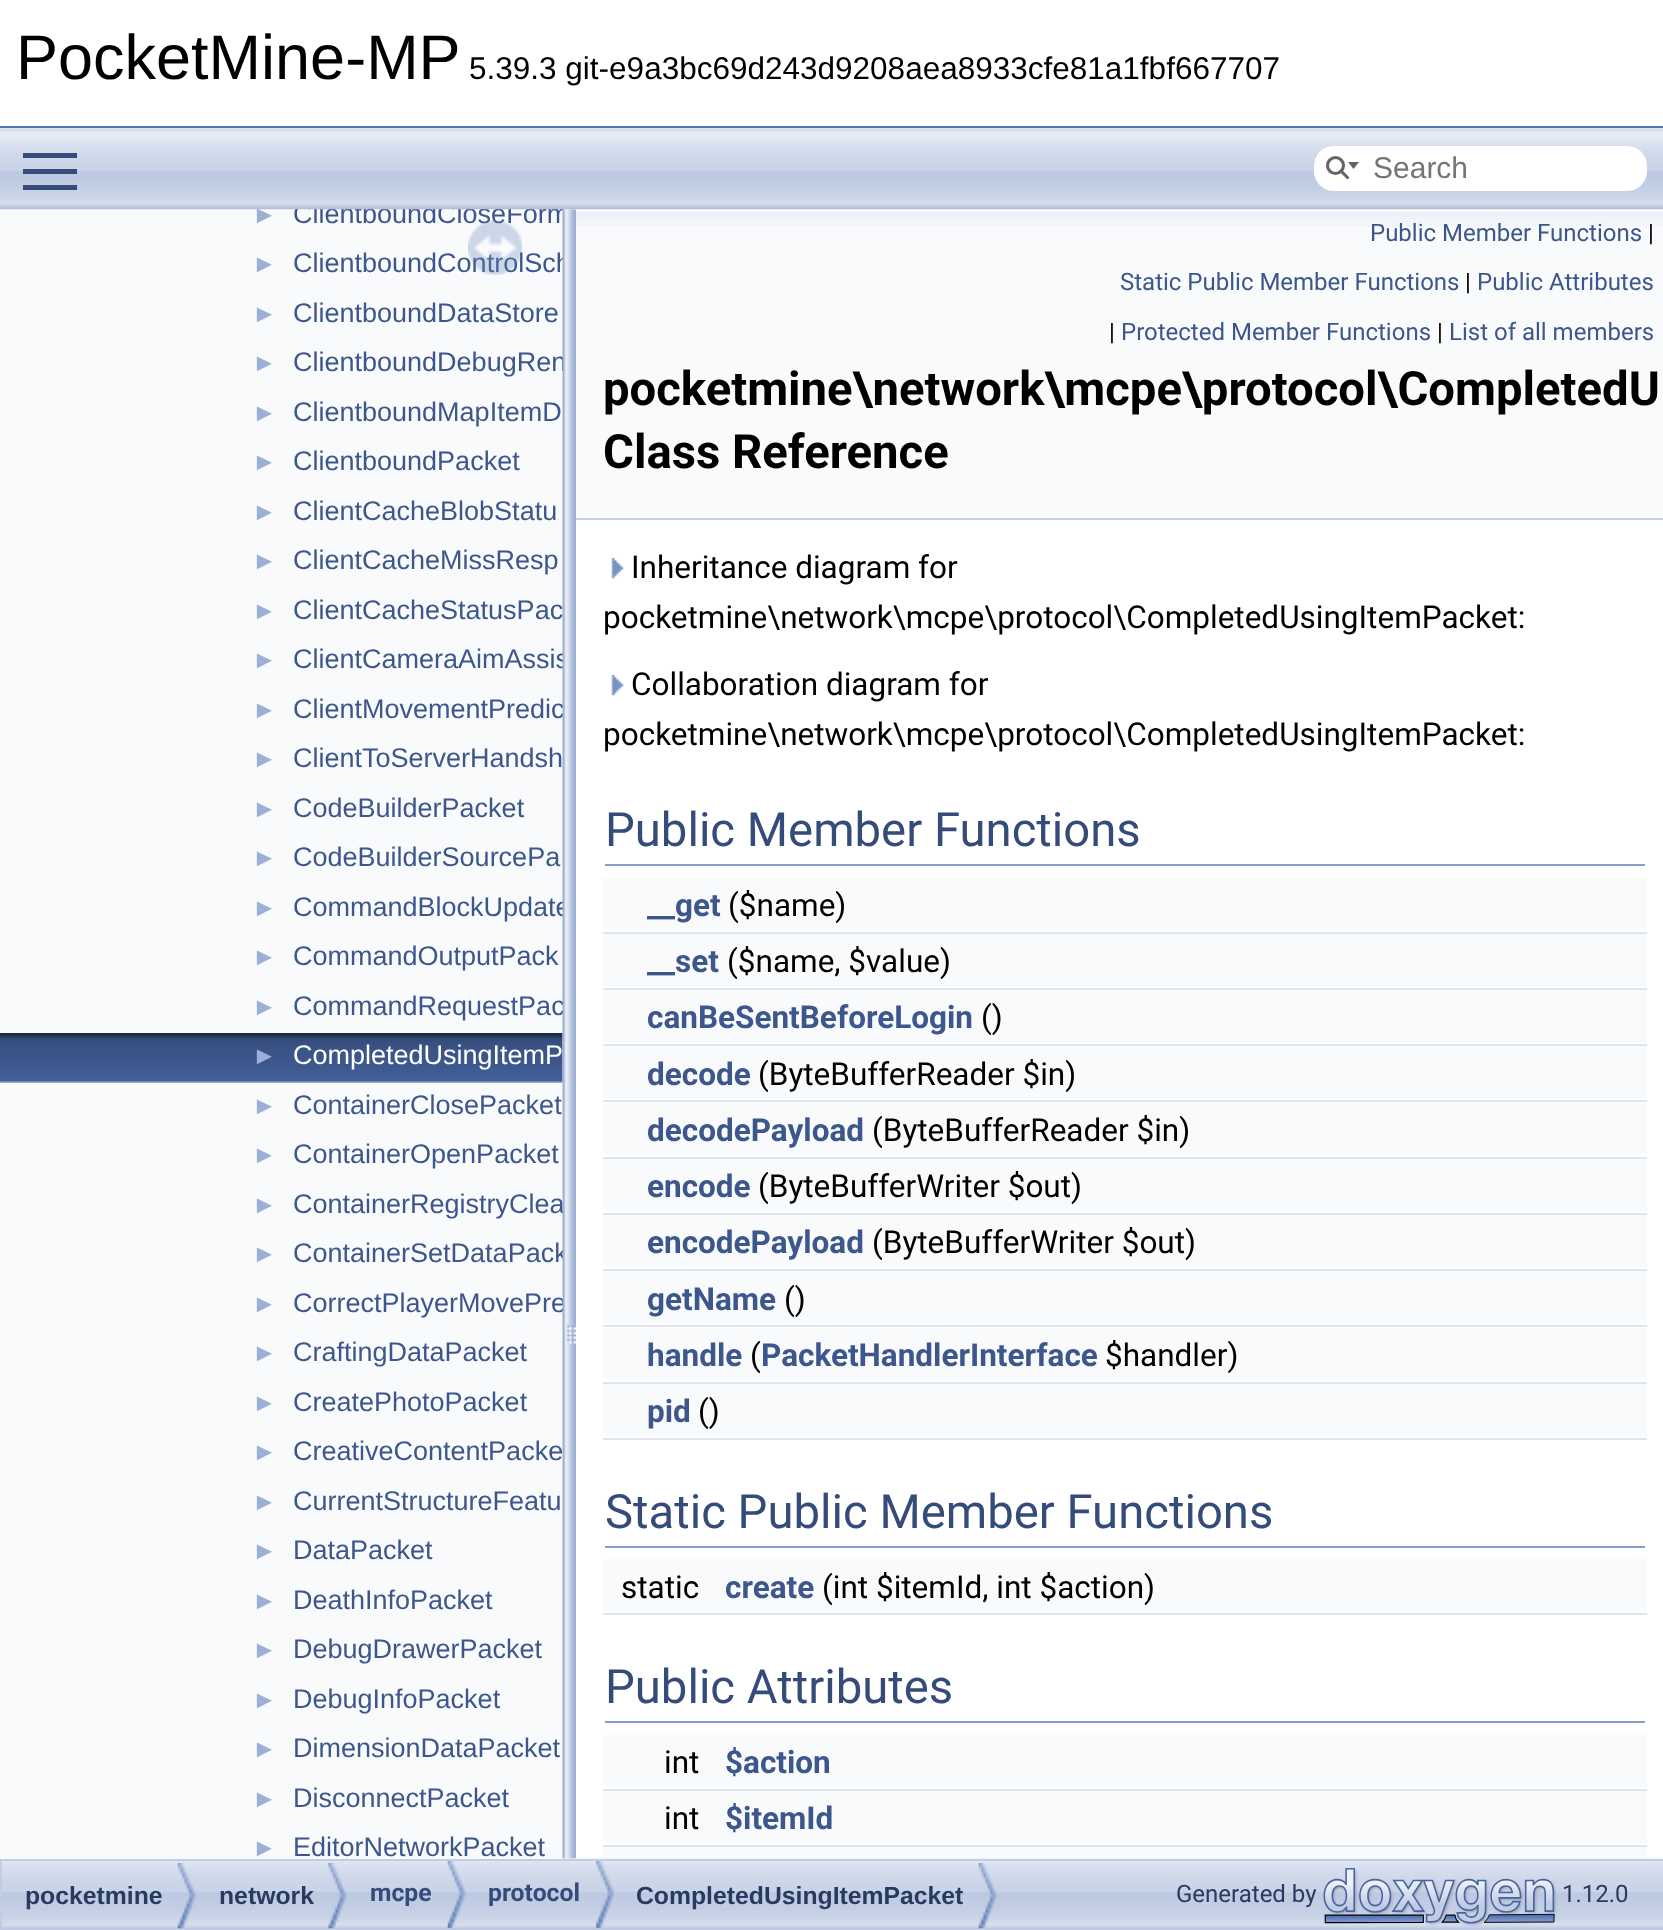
<!DOCTYPE html>
<meta charset="utf-8">
<style>body { margin: 0 } canvas { display: block }</style>
<canvas id="canvas" width="1663" height="1930"></canvas>
<img id="img1" src="img_07.png" hidden>
<img id="img2" src="img_02.png" hidden>
<img id="img3" src="img_05.png" hidden>
<img id="img4" src="img_06.png" hidden>
<img id="img5" src="img_08.png" hidden>
<img id="img6" src="img_09.png" hidden>
<img id="img7" src="img_10.png" hidden>
<img id="img8" src="img_11.png" hidden>
<img id="img9" src="img_12.png" hidden>
<img id="img10" src="img_13.png" hidden>
<img id="img11" src="img_03.png" hidden>
<img id="img12" src="img_04.png" hidden>
<img id="img13" src="img_01.png" hidden>
<script>
window.onload = function () {
	const canvas = document.getElementById("canvas");
	const ctx = canvas.getContext("2d");
	ctx.miterLimit = 4;
	ctx.fontKerning = "normal";
	function txt(s, x, y) {
		ctx.fillText(s, x, y);
	}
	function fill(x, y, w, h) {
		ctx.fillRect(x, y, w, h);
	}
	function round(x, y, w, h, r) {
		ctx.beginPath();
		ctx.roundRect(x, y, w, h, r);
		ctx.fill();
	}
	function img(id, x, y, w, h) {
		ctx.drawImage(document.getElementById(id), x, y, w, h);
	}

	ctx.fillStyle = "#FFFFFF";
	fill(0, 0, 1663, 1930);
	ctx.fillStyle = "#5373B4";
	fill(0, 126, 1663, 2);
	ctx.fillStyle = "#F9FAFC";
	fill(603, 1847, 1044, 12);
	img("img1", 2, 1858, 1661, 71);
	fill(0, 209, 563, 1650);
	img("img2", 0, 1033, 563, 50);
	fill(576, 209, 1087, 309);
	img("img3", 576, 210, 1087, 17);
	ctx.fillStyle = "#C4CFE5";
	fill(576, 518, 1087, 2);
	img("img4", 611, 558, 13, 21);
	img("img4", 611, 675, 13, 21);
	ctx.fillStyle = "#879ECB";
	fill(605, 864, 1040, 2);
	ctx.fillStyle = "#F9FAFC";
	fill(603, 878, 1044, 51);
	ctx.fillStyle = "#DEE4F0";
	fill(603, 932, 1044, 2);
	ctx.fillStyle = "#F9FAFC";
	fill(603, 934, 1044, 52);
	ctx.fillStyle = "#DEE4F0";
	fill(603, 988, 1044, 2);
	ctx.fillStyle = "#F9FAFC";
	fill(603, 990, 1044, 52);
	ctx.fillStyle = "#DEE4F0";
	fill(603, 1044, 1044, 2);
	ctx.fillStyle = "#F9FAFC";
	fill(603, 1046, 1044, 52);
	ctx.fillStyle = "#DEE4F0";
	fill(603, 1100, 1044, 2);
	ctx.fillStyle = "#F9FAFC";
	fill(603, 1103, 1044, 51);
	ctx.fillStyle = "#DEE4F0";
	fill(603, 1157, 1044, 2);
	ctx.fillStyle = "#F9FAFC";
	fill(603, 1159, 1044, 52);
	ctx.fillStyle = "#DEE4F0";
	fill(603, 1213, 1044, 2);
	ctx.fillStyle = "#F9FAFC";
	fill(603, 1215, 1044, 52);
	ctx.fillStyle = "#DEE4F0";
	fill(603, 1269, 1044, 2);
	ctx.fillStyle = "#F9FAFC";
	fill(603, 1271, 1044, 52);
	ctx.fillStyle = "#DEE4F0";
	fill(603, 1325, 1044, 2);
	ctx.fillStyle = "#F9FAFC";
	fill(603, 1328, 1044, 51);
	ctx.fillStyle = "#DEE4F0";
	fill(603, 1382, 1044, 2);
	ctx.fillStyle = "#F9FAFC";
	fill(603, 1384, 1044, 52);
	ctx.fillStyle = "#DEE4F0";
	fill(603, 1438, 1044, 2);
	ctx.fillStyle = "#879ECB";
	fill(605, 1546, 1040, 2);
	ctx.fillStyle = "#F9FAFC";
	fill(603, 1559, 1044, 52);
	ctx.fillStyle = "#DEE4F0";
	fill(603, 1613, 1044, 2);
	ctx.fillStyle = "#879ECB";
	fill(605, 1721, 1040, 2);
	ctx.fillStyle = "#F9FAFC";
	fill(603, 1735, 1044, 52);
	ctx.fillStyle = "#DEE4F0";
	fill(603, 1789, 1044, 2);
	ctx.fillStyle = "#F9FAFC";
	fill(603, 1791, 1044, 52);
	ctx.fillStyle = "#DEE4F0";
	fill(603, 1845, 1044, 2);
	ctx.strokeStyle = "#C2CDE4";
	ctx.lineWidth = 2;
	ctx.strokeRect(1, 1860, 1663, 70);
	img("img5", 177, 1863, 19, 66);
	img("img6", 328, 1863, 19, 66);
	img("img7", 447, 1860, 19, 69);
	img("img8", 596, 1860, 19, 69);
	img("img9", 978, 1863, 19, 66);
	img("img10", 1323, 1868, 234, 59);
	ctx.font = "63px Liberation Sans";
	ctx.fillStyle = "#000000";
	txt("PocketMine-MP", 16, 79);
	ctx.font = "31.5px Liberation Sans";
	txt("5.39.3 git-e9a3bc69d243d9208aea8933cfe81a1fbf667707", 469, 79);
	ctx.font = "25px Liberation Sans";
	ctx.fillStyle = "#9CAFD4";
	txt("►", 252, 223);
	ctx.save();
	ctx.beginPath();
	ctx.rect(0, 209, 563, 1650);
	ctx.clip();
	ctx.font = "27px Liberation Sans";
	ctx.fillStyle = "#3D578C";
	txt("ClientboundCloseForm", 293, 223);
	ctx.restore();
	txt("►", 252, 272);
	ctx.font = "27px Liberation Sans";
	ctx.fillStyle = "#3D578C";
	txt("ClientboundControlSch", 293, 272);
	ctx.font = "25px Liberation Sans";
	ctx.fillStyle = "#9CAFD4";
	txt("►", 252, 322);
	ctx.font = "27px Liberation Sans";
	ctx.fillStyle = "#3D578C";
	txt("ClientboundDataStore", 293, 322);
	ctx.font = "25px Liberation Sans";
	ctx.fillStyle = "#9CAFD4";
	txt("►", 252, 371);
	ctx.font = "27px Liberation Sans";
	ctx.fillStyle = "#3D578C";
	txt("ClientboundDebugRen", 293, 371);
	ctx.font = "25px Liberation Sans";
	ctx.fillStyle = "#9CAFD4";
	txt("►", 252, 421);
	ctx.font = "27px Liberation Sans";
	ctx.fillStyle = "#3D578C";
	txt("ClientboundMapItemD", 293, 421);
	ctx.font = "25px Liberation Sans";
	ctx.fillStyle = "#9CAFD4";
	txt("►", 252, 470);
	ctx.font = "27px Liberation Sans";
	ctx.fillStyle = "#3D578C";
	txt("ClientboundPacket", 293, 470);
	ctx.font = "25px Liberation Sans";
	ctx.fillStyle = "#9CAFD4";
	txt("►", 252, 520);
	ctx.font = "27px Liberation Sans";
	ctx.fillStyle = "#3D578C";
	txt("ClientCacheBlobStatu", 293, 520);
	ctx.font = "25px Liberation Sans";
	ctx.fillStyle = "#9CAFD4";
	txt("►", 252, 569);
	ctx.font = "27px Liberation Sans";
	ctx.fillStyle = "#3D578C";
	txt("ClientCacheMissResp", 293, 569);
	ctx.font = "25px Liberation Sans";
	ctx.fillStyle = "#9CAFD4";
	txt("►", 252, 619);
	ctx.font = "27px Liberation Sans";
	ctx.fillStyle = "#3D578C";
	txt("ClientCacheStatusPac", 293, 619);
	ctx.font = "25px Liberation Sans";
	ctx.fillStyle = "#9CAFD4";
	txt("►", 252, 668);
	ctx.font = "27px Liberation Sans";
	ctx.fillStyle = "#3D578C";
	txt("ClientCameraAimAssis", 293, 668);
	ctx.font = "25px Liberation Sans";
	ctx.fillStyle = "#9CAFD4";
	txt("►", 252, 718);
	ctx.font = "27px Liberation Sans";
	ctx.fillStyle = "#3D578C";
	txt("ClientMovementPredic", 293, 718);
	ctx.font = "25px Liberation Sans";
	ctx.fillStyle = "#9CAFD4";
	txt("►", 252, 767);
	ctx.font = "27px Liberation Sans";
	ctx.fillStyle = "#3D578C";
	txt("ClientToServerHandsh", 293, 767);
	ctx.font = "25px Liberation Sans";
	ctx.fillStyle = "#9CAFD4";
	txt("►", 252, 817);
	ctx.font = "27px Liberation Sans";
	ctx.fillStyle = "#3D578C";
	txt("CodeBuilderPacket", 293, 817);
	ctx.font = "25px Liberation Sans";
	ctx.fillStyle = "#9CAFD4";
	txt("►", 252, 866);
	ctx.font = "27px Liberation Sans";
	ctx.fillStyle = "#3D578C";
	txt("CodeBuilderSourcePa", 293, 866);
	ctx.font = "25px Liberation Sans";
	ctx.fillStyle = "#9CAFD4";
	txt("►", 252, 916);
	ctx.font = "27px Liberation Sans";
	ctx.fillStyle = "#3D578C";
	txt("CommandBlockUpdate", 293, 916);
	ctx.font = "25px Liberation Sans";
	ctx.fillStyle = "#9CAFD4";
	txt("►", 252, 965);
	ctx.font = "27px Liberation Sans";
	ctx.fillStyle = "#3D578C";
	txt("CommandOutputPack", 293, 965);
	ctx.font = "25px Liberation Sans";
	ctx.fillStyle = "#9CAFD4";
	txt("►", 252, 1015);
	ctx.font = "27px Liberation Sans";
	ctx.fillStyle = "#3D578C";
	txt("CommandRequestPac", 293, 1015);
	ctx.font = "25px Liberation Sans";
	ctx.fillStyle = "#9CAFD4";
	txt("►", 252, 1064);
	ctx.font = "27px Liberation Sans";
	ctx.fillStyle = "#FFFFFF";
	txt("CompletedUsingItemP", 293, 1064);
	ctx.font = "25px Liberation Sans";
	ctx.fillStyle = "#9CAFD4";
	txt("►", 252, 1114);
	ctx.font = "27px Liberation Sans";
	ctx.fillStyle = "#3D578C";
	txt("ContainerClosePacket", 293, 1114);
	ctx.font = "25px Liberation Sans";
	ctx.fillStyle = "#9CAFD4";
	txt("►", 252, 1163);
	ctx.font = "27px Liberation Sans";
	ctx.fillStyle = "#3D578C";
	txt("ContainerOpenPacket", 293, 1163);
	ctx.font = "25px Liberation Sans";
	ctx.fillStyle = "#9CAFD4";
	txt("►", 252, 1213);
	ctx.font = "27px Liberation Sans";
	ctx.fillStyle = "#3D578C";
	txt("ContainerRegistryClea", 293, 1213);
	ctx.font = "25px Liberation Sans";
	ctx.fillStyle = "#9CAFD4";
	txt("►", 252, 1262);
	ctx.font = "27px Liberation Sans";
	ctx.fillStyle = "#3D578C";
	txt("ContainerSetDataPack", 293, 1262);
	ctx.font = "25px Liberation Sans";
	ctx.fillStyle = "#9CAFD4";
	txt("►", 252, 1312);
	ctx.font = "27px Liberation Sans";
	ctx.fillStyle = "#3D578C";
	txt("CorrectPlayerMovePre", 293, 1312);
	ctx.font = "25px Liberation Sans";
	ctx.fillStyle = "#9CAFD4";
	txt("►", 252, 1361);
	ctx.font = "27px Liberation Sans";
	ctx.fillStyle = "#3D578C";
	txt("CraftingDataPacket", 293, 1361);
	ctx.font = "25px Liberation Sans";
	ctx.fillStyle = "#9CAFD4";
	txt("►", 252, 1411);
	ctx.font = "27px Liberation Sans";
	ctx.fillStyle = "#3D578C";
	txt("CreatePhotoPacket", 293, 1411);
	ctx.font = "25px Liberation Sans";
	ctx.fillStyle = "#9CAFD4";
	txt("►", 252, 1460);
	ctx.font = "27px Liberation Sans";
	ctx.fillStyle = "#3D578C";
	txt("CreativeContentPacke", 293, 1460);
	ctx.font = "25px Liberation Sans";
	ctx.fillStyle = "#9CAFD4";
	txt("►", 252, 1510);
	ctx.font = "27px Liberation Sans";
	ctx.fillStyle = "#3D578C";
	txt("CurrentStructureFeatu", 293, 1510);
	ctx.font = "25px Liberation Sans";
	ctx.fillStyle = "#9CAFD4";
	txt("►", 252, 1559);
	ctx.font = "27px Liberation Sans";
	ctx.fillStyle = "#3D578C";
	txt("DataPacket", 293, 1559);
	ctx.font = "25px Liberation Sans";
	ctx.fillStyle = "#9CAFD4";
	txt("►", 252, 1609);
	ctx.font = "27px Liberation Sans";
	ctx.fillStyle = "#3D578C";
	txt("DeathInfoPacket", 293, 1609);
	ctx.font = "25px Liberation Sans";
	ctx.fillStyle = "#9CAFD4";
	txt("►", 252, 1658);
	ctx.font = "27px Liberation Sans";
	ctx.fillStyle = "#3D578C";
	txt("DebugDrawerPacket", 293, 1658);
	ctx.font = "25px Liberation Sans";
	ctx.fillStyle = "#9CAFD4";
	txt("►", 252, 1708);
	ctx.font = "27px Liberation Sans";
	ctx.fillStyle = "#3D578C";
	txt("DebugInfoPacket", 293, 1708);
	ctx.font = "25px Liberation Sans";
	ctx.fillStyle = "#9CAFD4";
	txt("►", 252, 1757);
	ctx.font = "27px Liberation Sans";
	ctx.fillStyle = "#3D578C";
	txt("DimensionDataPacket", 293, 1757);
	ctx.font = "25px Liberation Sans";
	ctx.fillStyle = "#9CAFD4";
	txt("►", 252, 1807);
	ctx.font = "27px Liberation Sans";
	ctx.fillStyle = "#3D578C";
	txt("DisconnectPacket", 293, 1807);
	ctx.font = "25px Liberation Sans";
	ctx.fillStyle = "#9CAFD4";
	txt("►", 252, 1856);
	ctx.font = "27px Liberation Sans";
	ctx.fillStyle = "#3D578C";
	txt("EditorNetworkPacket", 293, 1856);
	img("img11", 468, 220, 54, 55);
	img("img12", 562, 209, 14, 1650);
	img("img13", 0, 128, 1663, 82);
	ctx.fillStyle = "#FFFFFF";
	round(1314, 146, 333, 45, 20);
	ctx.font = "30px Liberation Sans";
	ctx.fillStyle = "#757575";
	txt("Search", 1373, 178);
	ctx.beginPath();
	ctx.arc(1335.5, 165.5, 8, 0, Math.PI * 2);
	ctx.strokeStyle = "#656565";
	ctx.lineWidth = 3.1;
	ctx.stroke();
	ctx.beginPath();
	ctx.moveTo(1341, 171);
	ctx.lineTo(1347.5, 177.5);
	ctx.lineCap = "round";
	ctx.stroke();
	ctx.fillStyle = "#656565";
	ctx.beginPath();
	ctx.moveTo(1348, 162);
	ctx.lineTo(1353.5, 169);
	ctx.lineTo(1359, 162);
	ctx.closePath();
	ctx.fill();
	ctx.fillStyle = "#364D7C";
	fill(23, 185, 54, 5);
	fill(23, 153, 54, 5);
	fill(23, 169, 54, 5);
	ctx.font = "24px Roboto";
	ctx.fillStyle = "#3D578C";
	txt("Public Member Functions", 1370, 241);
	ctx.fillStyle = "#000000";
	txt("|", 1648, 241);
	ctx.fillStyle = "#3D578C";
	txt("Static Public Member Functions", 1120, 290);
	ctx.fillStyle = "#000000";
	txt("|", 1465, 290);
	ctx.fillStyle = "#3D578C";
	txt("Public Attributes", 1477, 290);
	ctx.fillStyle = "#000000";
	txt("|", 1109, 340);
	ctx.fillStyle = "#3D578C";
	txt("Protected Member Functions", 1121, 340);
	ctx.fillStyle = "#000000";
	txt("|", 1437, 340);
	ctx.fillStyle = "#3D578C";
	txt("List of all members", 1449, 340);
	ctx.font = "bold 47.25px Roboto";
	ctx.fillStyle = "#000000";
	txt("pocketmine\\network\\mcpe\\protocol\\CompletedU", 603, 405);
	txt("Class Reference", 603, 468);
	ctx.font = "31.5px Roboto";
	txt("Inheritance diagram for", 631, 578);
	txt("pocketmine\\network\\mcpe\\protocol\\CompletedUsingItemPacket:", 603, 628);
	txt("Collaboration diagram for", 631, 695);
	txt("pocketmine\\network\\mcpe\\protocol\\CompletedUsingItemPacket:", 603, 745);
	ctx.font = "47.25px Roboto";
	ctx.fillStyle = "#354C7B";
	txt("Public Member Functions", 605, 846);
	ctx.font = "bold 31.5px Roboto";
	ctx.fillStyle = "#3D578C";
	txt("__get", 647, 916);
	ctx.font = "31.5px Roboto";
	ctx.fillStyle = "#000000";
	txt("($name)", 728, 916);
	ctx.font = "bold 31.5px Roboto";
	ctx.fillStyle = "#3D578C";
	txt("__set", 647, 972);
	ctx.font = "31.5px Roboto";
	ctx.fillStyle = "#000000";
	txt("($name, $value)", 727, 972);
	ctx.font = "bold 31.5px Roboto";
	ctx.fillStyle = "#3D578C";
	txt("canBeSentBeforeLogin", 647, 1028);
	ctx.font = "31.5px Roboto";
	ctx.fillStyle = "#000000";
	txt("()", 981, 1028);
	ctx.font = "bold 31.5px Roboto";
	ctx.fillStyle = "#3D578C";
	txt("decode", 647, 1085);
	ctx.font = "31.5px Roboto";
	ctx.fillStyle = "#000000";
	txt("(ByteBufferReader $in)", 758, 1085);
	ctx.font = "bold 31.5px Roboto";
	ctx.fillStyle = "#3D578C";
	txt("decodePayload", 647, 1141);
	ctx.font = "31.5px Roboto";
	ctx.fillStyle = "#000000";
	txt("(ByteBufferReader $in)", 872, 1141);
	ctx.font = "bold 31.5px Roboto";
	ctx.fillStyle = "#3D578C";
	txt("encode", 647, 1197);
	ctx.font = "31.5px Roboto";
	ctx.fillStyle = "#000000";
	txt("(ByteBufferWriter $out)", 758, 1197);
	ctx.font = "bold 31.5px Roboto";
	ctx.fillStyle = "#3D578C";
	txt("encodePayload", 647, 1253);
	ctx.font = "31.5px Roboto";
	ctx.fillStyle = "#000000";
	txt("(ByteBufferWriter $out)", 872, 1253);
	ctx.font = "bold 31.5px Roboto";
	ctx.fillStyle = "#3D578C";
	txt("getName", 647, 1310);
	ctx.font = "31.5px Roboto";
	ctx.fillStyle = "#000000";
	txt("()", 784, 1310);
	ctx.font = "bold 31.5px Roboto";
	ctx.fillStyle = "#3D578C";
	txt("handle", 647, 1366);
	ctx.font = "31.5px Roboto";
	ctx.fillStyle = "#000000";
	txt("(", 750, 1366);
	ctx.font = "bold 31.5px Roboto";
	ctx.fillStyle = "#3D578C";
	txt("PacketHandlerInterface", 761, 1366);
	ctx.font = "31.5px Roboto";
	ctx.fillStyle = "#000000";
	txt("$handler)", 1105, 1366);
	ctx.font = "bold 31.5px Roboto";
	ctx.fillStyle = "#3D578C";
	txt("pid", 647, 1422);
	ctx.font = "31.5px Roboto";
	ctx.fillStyle = "#000000";
	txt("()", 698, 1422);
	ctx.font = "47.25px Roboto";
	ctx.fillStyle = "#354C7B";
	txt("Static Public Member Functions", 605, 1528);
	ctx.font = "31.5px Roboto";
	ctx.fillStyle = "#000000";
	txt("static", 621, 1598);
	ctx.font = "bold 31.5px Roboto";
	ctx.fillStyle = "#3D578C";
	txt("create", 725, 1598);
	ctx.font = "31.5px Roboto";
	ctx.fillStyle = "#000000";
	txt("(int $itemId, int $action)", 822, 1598);
	ctx.font = "47.25px Roboto";
	ctx.fillStyle = "#354C7B";
	txt("Public Attributes", 605, 1703);
	ctx.font = "31.5px Roboto";
	ctx.fillStyle = "#000000";
	txt("int", 664, 1773);
	ctx.font = "bold 31.5px Roboto";
	ctx.fillStyle = "#3D578C";
	txt("$action", 725, 1773);
	ctx.font = "31.5px Roboto";
	ctx.fillStyle = "#000000";
	txt("int", 664, 1829);
	ctx.font = "bold 31.5px Roboto";
	ctx.fillStyle = "#3D578C";
	txt("$itemId", 725, 1829);
	ctx.font = "bold 24.75px Liberation Sans";
	ctx.fillStyle = "#283A5D";
	txt("pocketmine", 25, 1904);
	txt("network", 219, 1904);
	ctx.font = "bold 24.75px Roboto";
	ctx.fillStyle = "#354C7B";
	txt("mcpe", 370, 1901);
	txt("protocol", 488, 1901);
	ctx.font = "bold 24.75px Liberation Sans";
	ctx.fillStyle = "#283A5D";
	txt("CompletedUsingItemPacket", 636, 1904);
	ctx.font = "24px Roboto";
	txt("Generated by", 1176, 1902);
	txt("1.12.0", 1562, 1902);
};
</script>
